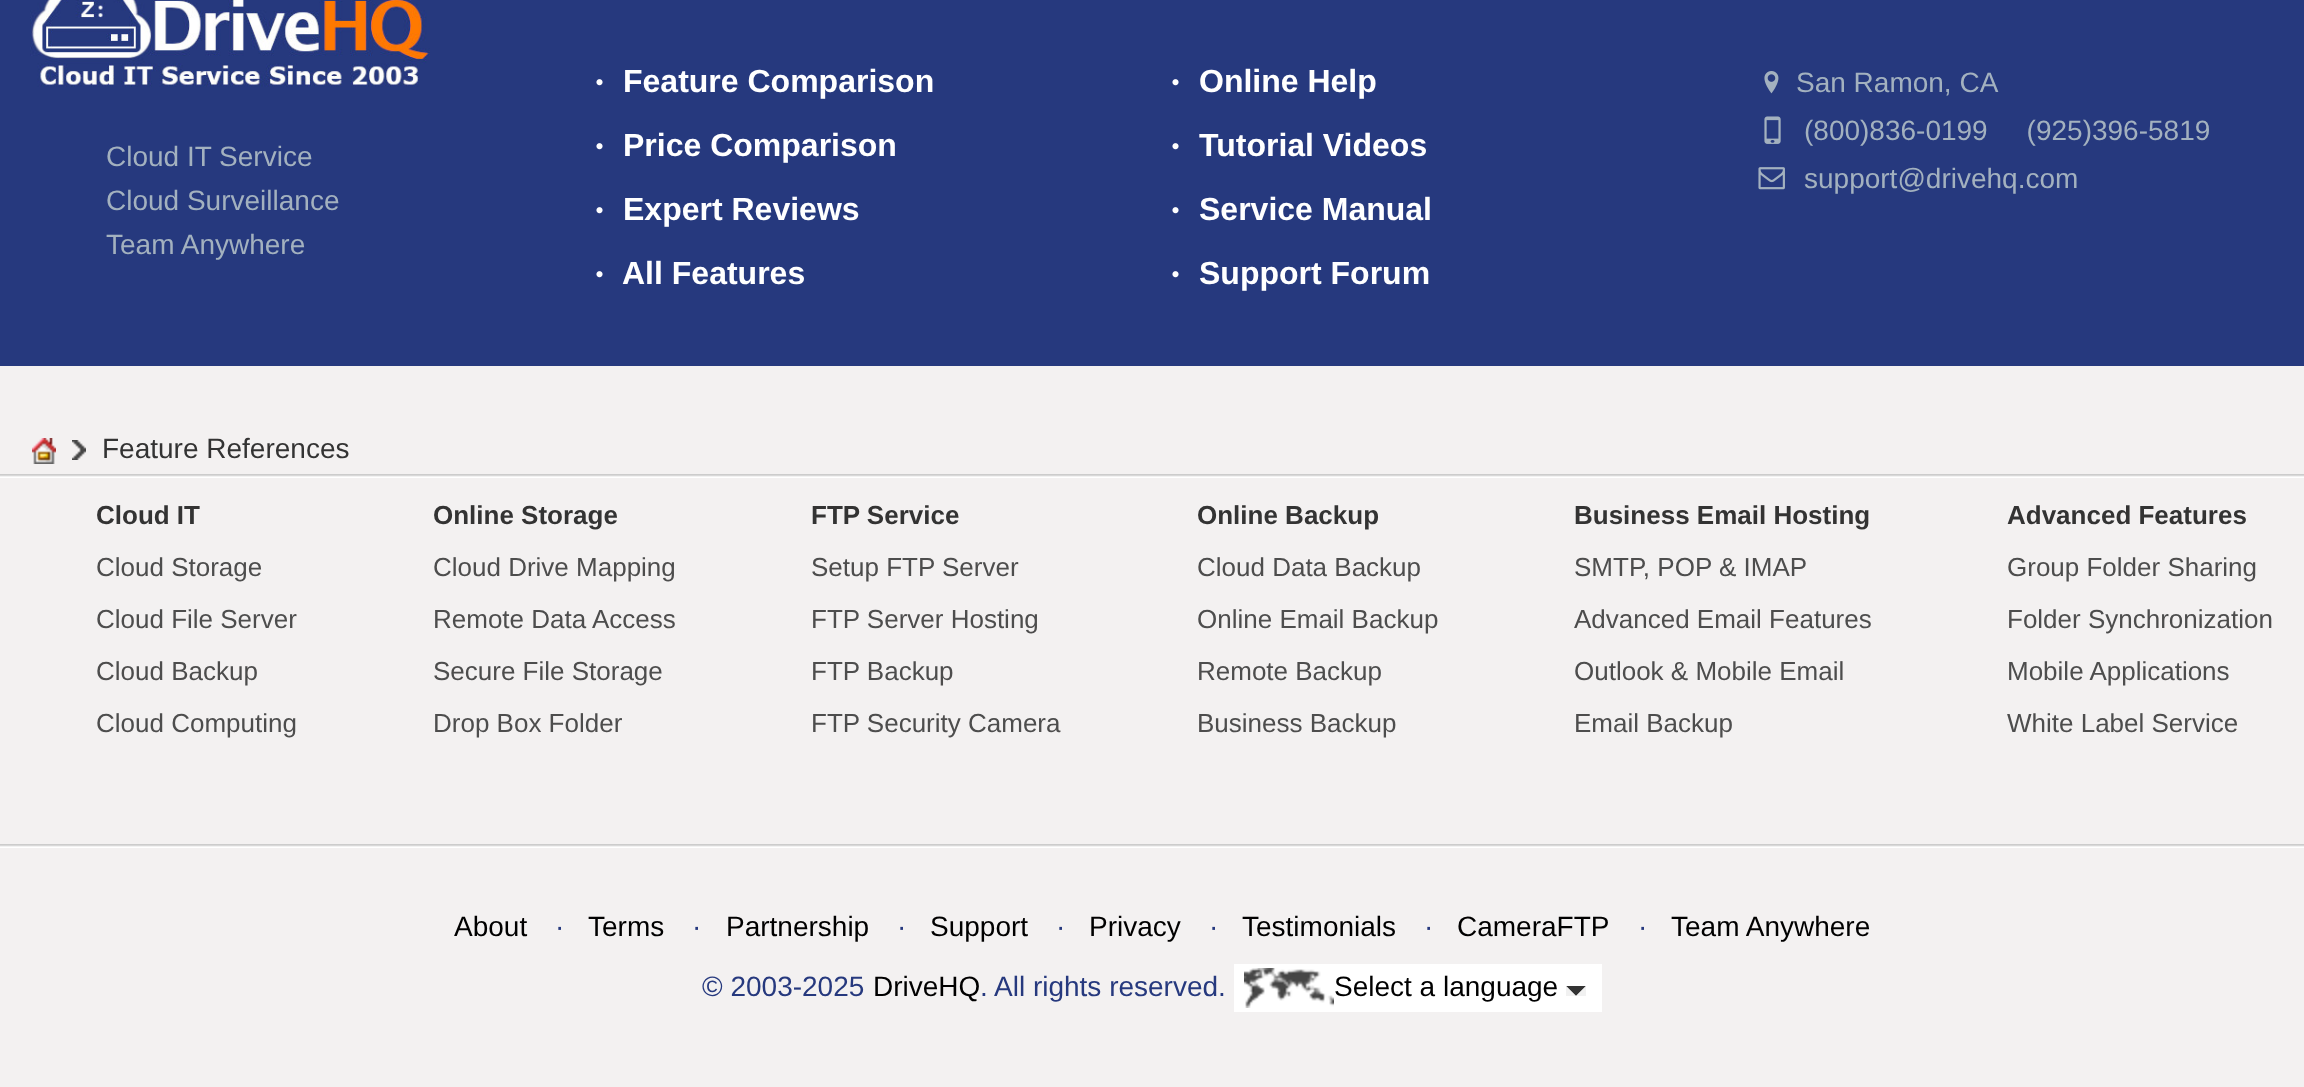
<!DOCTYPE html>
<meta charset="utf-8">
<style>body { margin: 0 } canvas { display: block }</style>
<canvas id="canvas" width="2304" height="1087"></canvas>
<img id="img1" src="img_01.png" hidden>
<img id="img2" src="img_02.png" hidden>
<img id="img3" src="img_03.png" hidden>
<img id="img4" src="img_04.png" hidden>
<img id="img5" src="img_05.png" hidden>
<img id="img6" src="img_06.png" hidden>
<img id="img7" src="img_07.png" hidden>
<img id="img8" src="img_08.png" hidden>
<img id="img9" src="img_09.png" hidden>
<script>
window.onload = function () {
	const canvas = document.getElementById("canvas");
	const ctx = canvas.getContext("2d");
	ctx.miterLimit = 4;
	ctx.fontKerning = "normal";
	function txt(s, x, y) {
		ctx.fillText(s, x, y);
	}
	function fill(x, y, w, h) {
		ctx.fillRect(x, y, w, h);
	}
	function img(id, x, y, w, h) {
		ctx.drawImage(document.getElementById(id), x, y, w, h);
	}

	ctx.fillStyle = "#26397E";
	fill(0, 0, 2304, 1087);
	img("img1", 30, 0, 400, 87);
	img("img2", 596, 79, 7, 7);
	img("img2", 596, 143, 7, 7);
	img("img2", 596, 207, 7, 7);
	img("img2", 596, 271, 7, 7);
	img("img2", 1172, 79, 7, 7);
	img("img2", 1172, 143, 7, 7);
	img("img2", 1172, 207, 7, 7);
	img("img2", 1172, 271, 7, 7);
	img("img3", 1764, 71, 15, 23);
	img("img4", 1764, 116, 17, 28);
	img("img5", 1758, 167, 27, 23);
	ctx.fillStyle = "#F3F1F1";
	fill(0, 366, 2304, 721);
	img("img6", 0, 474, 2304, 4);
	img("img7", 32, 438, 24, 26);
	img("img8", 72, 440, 14, 20);
	img("img6", 0, 844, 2304, 4);
	ctx.fillStyle = "#FFFFFF";
	fill(1234, 964, 368, 48);
	img("img9", 1244, 968, 90, 40);
	ctx.fillStyle = "#333333";
	ctx.beginPath();
	ctx.moveTo(1566, 986);
	ctx.lineTo(1586, 986);
	ctx.lineTo(1576, 996);
	ctx.closePath();
	ctx.fill();
	ctx.fillStyle = "#F1F1F1";
	ctx.beginPath();
	ctx.moveTo(1586, 986);
	ctx.lineTo(1586, 996);
	ctx.lineTo(1576, 996);
	ctx.closePath();
	ctx.moveTo(1566, 996);
	ctx.lineTo(1566, 986);
	ctx.lineTo(1576, 996);
	ctx.closePath();
	ctx.fill();
	ctx.font = "28px Liberation Sans";
	ctx.fillStyle = "#A3B1BF";
	txt("Cloud IT Service", 106, 166);
	txt("Cloud Surveillance", 106, 210);
	txt("Team Anywhere", 106, 254);
	ctx.font = "bold 32px Liberation Sans";
	ctx.fillStyle = "#FFFFFF";
	txt("Feature Comparison", 623, 92);
	txt("Price Comparison", 623, 156);
	txt("Expert Reviews", 623, 220);
	txt("All Features", 622, 284);
	txt("Online Help", 1199, 92);
	txt("Tutorial Videos", 1199, 156);
	txt("Service Manual", 1199, 220);
	txt("Support Forum", 1199, 284);
	ctx.font = "28px Liberation Sans";
	ctx.fillStyle = "#A3B1BF";
	txt("San Ramon, CA", 1796, 92);
	txt("(800)836-0199     (925)396-5819", 1804, 140);
	txt("support@drivehq.com", 1804, 188);
	ctx.fillStyle = "#333333";
	txt("Feature References", 102, 458);
	ctx.font = "bold 26px Liberation Sans";
	txt("Cloud IT", 96, 524);
	ctx.font = "26px Liberation Sans";
	ctx.fillStyle = "#4D4D4D";
	txt("Cloud Storage", 96, 576);
	txt("Cloud File Server", 96, 628);
	txt("Cloud Backup", 96, 680);
	txt("Cloud Computing", 96, 732);
	ctx.font = "bold 26px Liberation Sans";
	ctx.fillStyle = "#333333";
	txt("Online Storage", 433, 524);
	ctx.font = "26px Liberation Sans";
	ctx.fillStyle = "#4D4D4D";
	txt("Cloud Drive Mapping", 433, 576);
	txt("Remote Data Access", 433, 628);
	txt("Secure File Storage", 433, 680);
	txt("Drop Box Folder", 433, 732);
	ctx.font = "bold 26px Liberation Sans";
	ctx.fillStyle = "#333333";
	txt("FTP Service", 811, 524);
	ctx.font = "26px Liberation Sans";
	ctx.fillStyle = "#4D4D4D";
	txt("Setup FTP Server", 811, 576);
	txt("FTP Server Hosting", 811, 628);
	txt("FTP Backup", 811, 680);
	txt("FTP Security Camera", 811, 732);
	ctx.font = "bold 26px Liberation Sans";
	ctx.fillStyle = "#333333";
	txt("Online Backup", 1197, 524);
	ctx.font = "26px Liberation Sans";
	ctx.fillStyle = "#4D4D4D";
	txt("Cloud Data Backup", 1197, 576);
	txt("Online Email Backup", 1197, 628);
	txt("Remote Backup", 1197, 680);
	txt("Business Backup", 1197, 732);
	ctx.font = "bold 26px Liberation Sans";
	ctx.fillStyle = "#333333";
	txt("Business Email Hosting", 1574, 524);
	ctx.font = "26px Liberation Sans";
	ctx.fillStyle = "#4D4D4D";
	txt("SMTP, POP & IMAP", 1574, 576);
	txt("Advanced Email Features", 1574, 628);
	txt("Outlook & Mobile Email", 1574, 680);
	txt("Email Backup", 1574, 732);
	ctx.font = "bold 26px Liberation Sans";
	ctx.fillStyle = "#333333";
	txt("Advanced Features", 2007, 524);
	ctx.font = "26px Liberation Sans";
	ctx.fillStyle = "#4D4D4D";
	txt("Group Folder Sharing", 2007, 576);
	txt("Folder Synchronization", 2007, 628);
	txt("Mobile Applications", 2007, 680);
	txt("White Label Service", 2007, 732);
	ctx.font = "28px Liberation Sans";
	ctx.fillStyle = "#000000";
	txt("About", 454, 936);
	ctx.fillStyle = "#26397E";
	txt("·", 555, 936);
	ctx.fillStyle = "#000000";
	txt("Terms", 588, 936);
	ctx.fillStyle = "#26397E";
	txt("·", 692, 936);
	ctx.fillStyle = "#000000";
	txt("Partnership", 726, 936);
	ctx.fillStyle = "#26397E";
	txt("·", 897, 936);
	ctx.fillStyle = "#000000";
	txt("Support", 930, 936);
	ctx.fillStyle = "#26397E";
	txt("·", 1056, 936);
	ctx.fillStyle = "#000000";
	txt("Privacy", 1089, 936);
	ctx.fillStyle = "#26397E";
	txt("·", 1209, 936);
	ctx.fillStyle = "#000000";
	txt("Testimonials", 1242, 936);
	ctx.fillStyle = "#26397E";
	txt("·", 1424, 936);
	ctx.fillStyle = "#000000";
	txt("CameraFTP", 1457, 936);
	ctx.fillStyle = "#26397E";
	txt("·", 1638, 936);
	ctx.fillStyle = "#000000";
	txt("Team Anywhere", 1671, 936);
	ctx.fillStyle = "#26397E";
	txt("© 2003-2025", 702, 996);
	ctx.fillStyle = "#000000";
	txt("DriveHQ", 873, 996);
	ctx.fillStyle = "#26397E";
	txt(".", 980, 996);
	txt("All rights reserved.", 994, 996);
	ctx.fillStyle = "#000000";
	txt("Select a language", 1334, 996);
};
</script>
